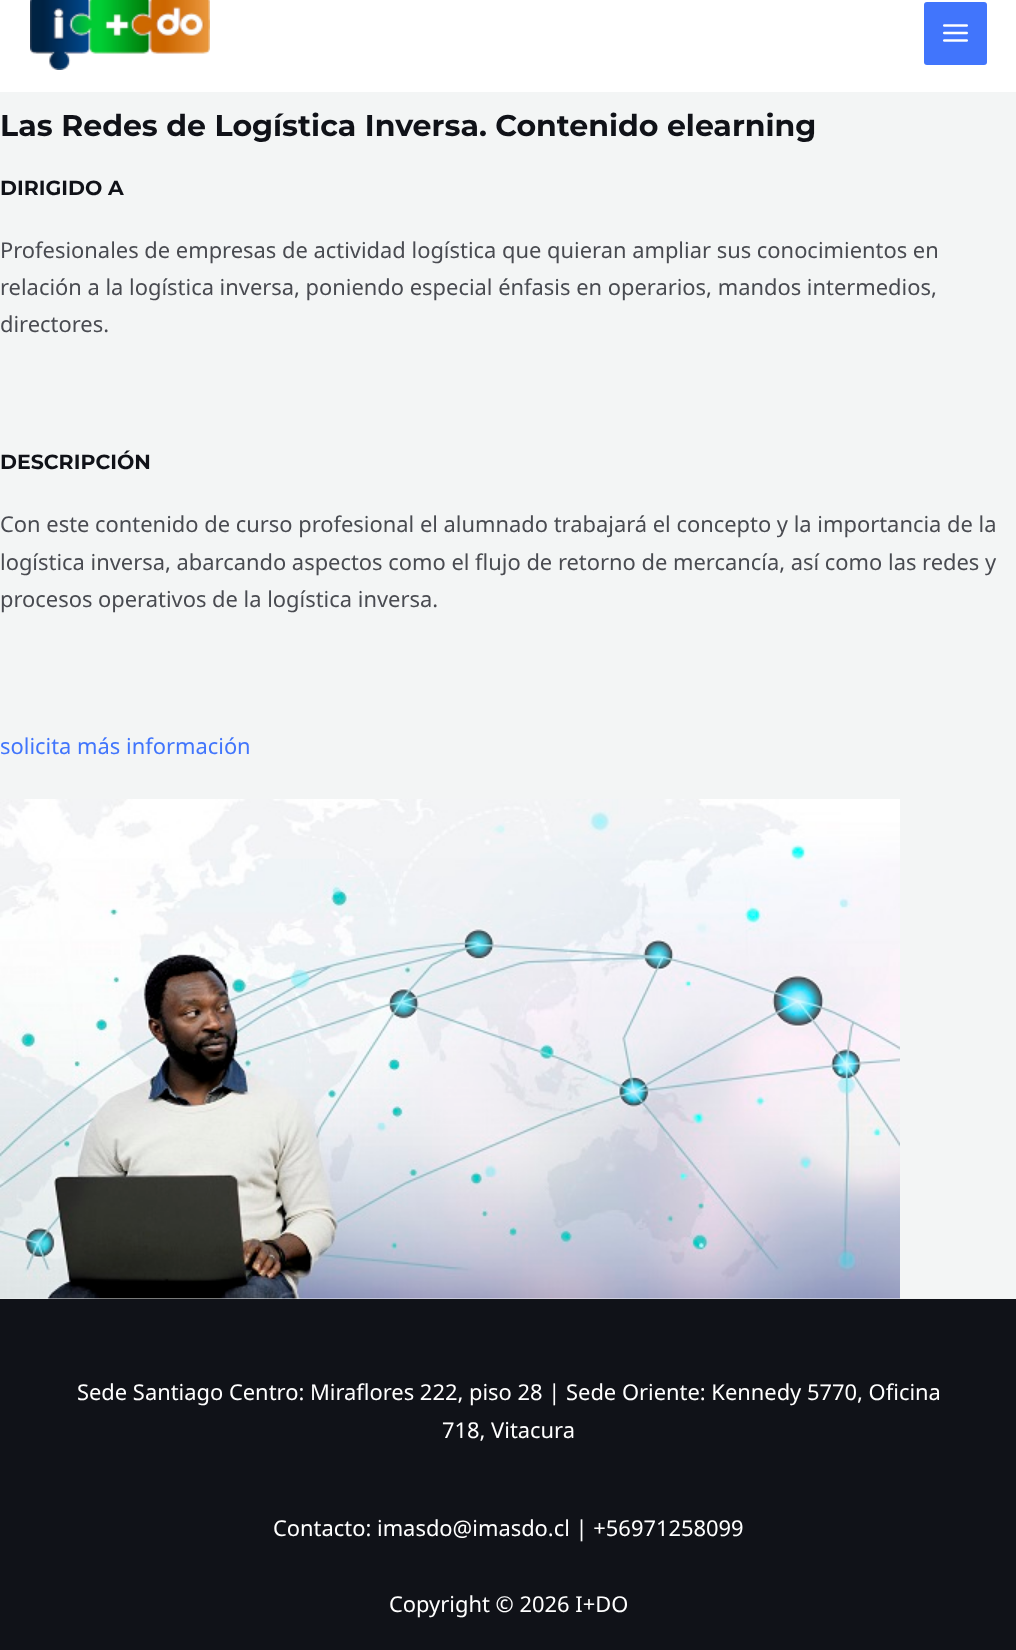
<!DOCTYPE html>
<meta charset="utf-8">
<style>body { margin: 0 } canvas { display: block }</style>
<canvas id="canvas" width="1016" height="1650"></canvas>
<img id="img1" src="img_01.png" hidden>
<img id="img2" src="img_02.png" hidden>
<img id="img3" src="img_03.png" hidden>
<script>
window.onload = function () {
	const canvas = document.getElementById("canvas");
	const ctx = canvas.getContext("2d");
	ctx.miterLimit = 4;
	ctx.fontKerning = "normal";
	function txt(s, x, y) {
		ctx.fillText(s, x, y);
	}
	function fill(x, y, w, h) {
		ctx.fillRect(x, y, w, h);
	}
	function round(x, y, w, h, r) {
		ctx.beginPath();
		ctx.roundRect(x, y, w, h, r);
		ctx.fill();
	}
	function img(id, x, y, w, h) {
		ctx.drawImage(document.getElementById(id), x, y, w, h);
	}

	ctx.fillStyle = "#F3F5F5";
	fill(0, 0, 1016, 1650);
	ctx.fillStyle = "#FFFFFF";
	fill(0, 0, 1016, 92);
	img("img1", 30, 0, 180, 70);
	ctx.fillStyle = "#4175FC";
	round(924, 2, 63, 63, 3);
	img("img2", 943, 24, 25, 18);
	img("img3", 0, 799, 900, 500);
	ctx.fillStyle = "#101218";
	fill(0, 1299, 1016, 351);
	ctx.font = "100 30px Montserrat";
	txt("Las Redes de Logística Inversa. Contenido elearning", 0, 136);
	ctx.font = "100 20.5px Montserrat";
	txt("DIRIGIDO A", 0, 195);
	ctx.font = "21.9px Noto Sans";
	ctx.fillStyle = "#494B51";
	txt("Profesionales de empresas de actividad logística que quieran ampliar sus conocimientos en", 0, 258);
	txt("relación a la logística inversa, poniendo especial énfasis en operarios, mandos intermedios,", 0, 295);
	txt("directores.", 0, 332);
	ctx.font = "100 20.5px Montserrat";
	ctx.fillStyle = "#101218";
	txt("DESCRIPCIÓN", 0, 469);
	ctx.font = "21.9px Noto Sans";
	ctx.fillStyle = "#494B51";
	txt("Con este contenido de curso profesional el alumnado trabajará el concepto y la importancia de la", 0, 532);
	txt("logística inversa, abarcando aspectos como el flujo de retorno de mercancía, así como las redes y", 0, 570);
	txt("procesos operativos de la logística inversa.", 0, 607);
	ctx.fillStyle = "#4175FC";
	txt("solicita más información", 0, 754);
	ctx.fillStyle = "#FFFFFF";
	txt("Sede Santiago Centro: Miraflores 222, piso 28 | Sede Oriente: Kennedy 5770, Oficina", 77, 1400);
	txt("718, Vitacura", 442, 1438);
	txt("Contacto: imasdo@imasdo.cl | +56971258099", 273, 1536);
	txt("Copyright © 2026 I+DO", 389, 1612);
};
</script>
